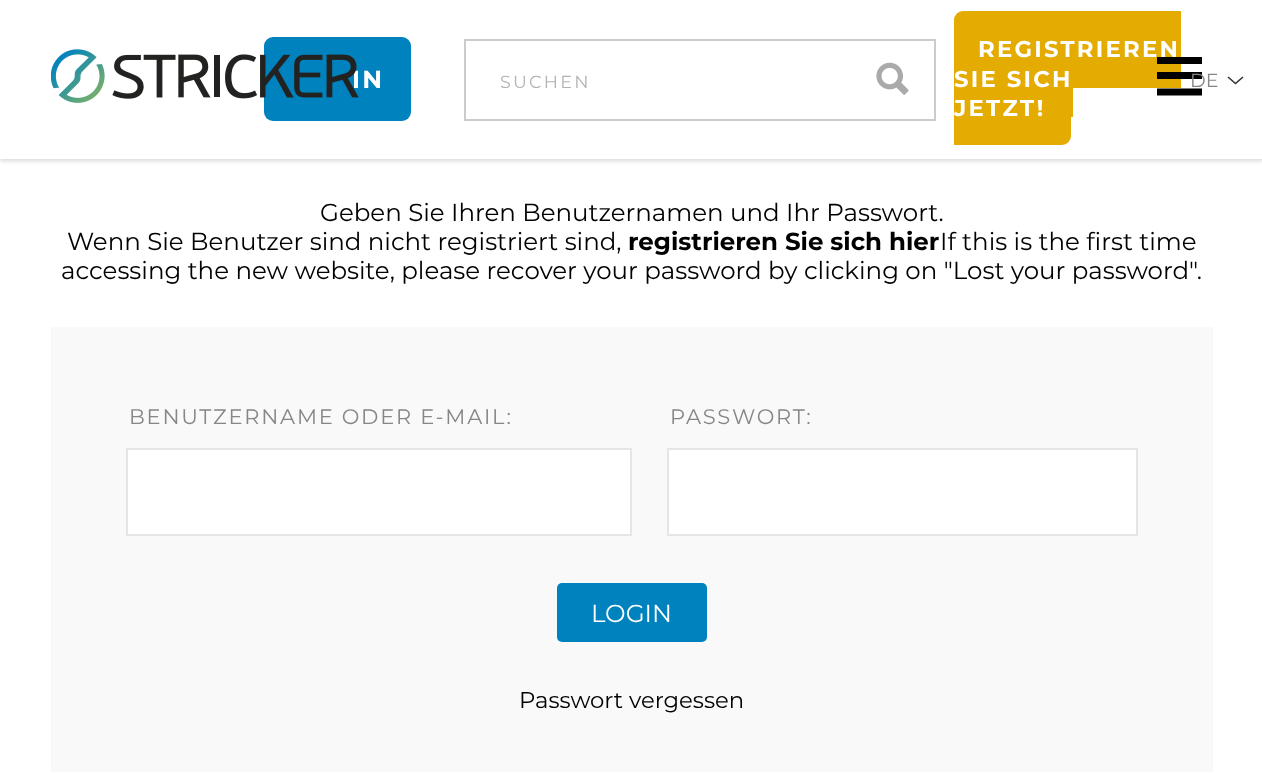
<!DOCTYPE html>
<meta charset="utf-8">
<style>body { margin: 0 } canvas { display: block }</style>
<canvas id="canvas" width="1262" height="774"></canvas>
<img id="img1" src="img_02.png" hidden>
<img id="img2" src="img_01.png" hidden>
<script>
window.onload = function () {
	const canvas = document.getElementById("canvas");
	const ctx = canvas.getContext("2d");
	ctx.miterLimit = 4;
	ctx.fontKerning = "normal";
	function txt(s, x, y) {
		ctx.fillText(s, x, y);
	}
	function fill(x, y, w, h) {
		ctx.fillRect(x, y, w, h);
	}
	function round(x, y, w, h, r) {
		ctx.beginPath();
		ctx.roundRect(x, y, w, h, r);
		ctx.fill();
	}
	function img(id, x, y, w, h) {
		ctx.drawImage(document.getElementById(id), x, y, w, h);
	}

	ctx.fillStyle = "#FFFFFF";
	fill(0, 0, 1262, 774);
	ctx.fillStyle = "rgba(0, 0, 0, 0.15)";
	ctx.filter = "blur(2px)";
	ctx.beginPath();
	ctx.rect(0, 2, 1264, 159);
	ctx.fill();
	ctx.filter = "none";
	ctx.fillStyle = "#FFFFFF";
	fill(0, 0, 1262, 159);
	ctx.fillStyle = "#0082BE";
	round(264, 37, 147, 84, 9);
	ctx.strokeStyle = "#CCCCCC";
	ctx.lineWidth = 2;
	ctx.strokeRect(465, 40, 470, 80);
	img("img1", 876, 62, 33, 33);
	ctx.fillStyle = "#E4AB00";
	ctx.beginPath();
	ctx.roundRect(954, 11, 227, 77, [9, 0, 0, 9]);
	ctx.fill();
	fill(954, 79, 119, 38);
	ctx.beginPath();
	ctx.roundRect(954, 68, 117, 77, [0, 9, 9, 0]);
	ctx.fill();
	ctx.beginPath();
	ctx.moveTo(1228, 77);
	ctx.lineTo(1235.5, 83.5);
	ctx.lineTo(1243, 77);
	ctx.strokeStyle = "#333333";
	ctx.lineWidth = 1.6;
	ctx.stroke();
	ctx.fillStyle = "#F9F9F9";
	fill(51, 327, 1162, 445);
	ctx.fillStyle = "#FFFFFF";
	ctx.beginPath();
	ctx.rect(127, 449, 504, 86);
	ctx.fill();
	ctx.strokeStyle = "#E5E5E5";
	ctx.lineWidth = 2;
	ctx.stroke();
	ctx.beginPath();
	ctx.rect(668, 449, 469, 86);
	ctx.fill();
	ctx.stroke();
	ctx.fillStyle = "#0082BE";
	round(557, 583, 150, 59, 5);
	ctx.letterSpacing = "2.25px";
	ctx.font = "bold 24.5px Montserrat";
	ctx.fillStyle = "#FFFFFF";
	txt("IN", 352, 88);
	img("img2", 51, 49, 308, 54);
	ctx.font = "17.5px Montserrat";
	ctx.fillStyle = "#B3B3B3";
	txt("SUCHEN", 500, 88);
	ctx.font = "bold 22.75px Montserrat";
	ctx.fillStyle = "#FFFFFF";
	txt("REGISTRIEREN", 978, 57);
	txt("SIE SICH", 954, 87);
	txt("JETZT!", 954, 116);
	ctx.beginPath();
	ctx.moveTo(1157, 60.5);
	ctx.lineTo(1202, 60.5);
	ctx.moveTo(1157, 75.5);
	ctx.lineTo(1202, 75.5);
	ctx.moveTo(1157, 92);
	ctx.lineTo(1202, 92);
	ctx.strokeStyle = "#000000";
	ctx.lineWidth = 7;
	ctx.stroke();
	ctx.letterSpacing = "0px";
	ctx.font = "19px Montserrat";
	ctx.fillStyle = "#868686";
	txt("DE", 1190, 87);
	ctx.font = "24.5px Montserrat";
	ctx.fillStyle = "#000000";
	txt("Geben Sie Ihren Benutzernamen und Ihr Passwort.", 320, 221);
	txt("Wenn Sie Benutzer sind nicht registriert sind,", 67, 250);
	ctx.font = "bold 24.5px Montserrat";
	txt("registrieren Sie sich hier", 628, 250);
	ctx.font = "24.5px Montserrat";
	txt("If this is the first time", 940, 250);
	txt("accessing the new website, please recover your password by clicking on \"Lost your password\".", 61, 279);
	ctx.letterSpacing = "1.75px";
	ctx.font = "21px Montserrat";
	ctx.fillStyle = "#868686";
	txt("BENUTZERNAME ODER E-MAIL:", 129, 424);
	txt("PASSWORT:", 670, 424);
	ctx.letterSpacing = "0px";
	ctx.font = "24.5px Montserrat";
	ctx.fillStyle = "#FFFFFF";
	txt("LOGIN", 591, 622);
	ctx.font = "22.75px Montserrat";
	ctx.fillStyle = "#000000";
	txt("Passwort vergessen", 519, 708);
};
</script>
